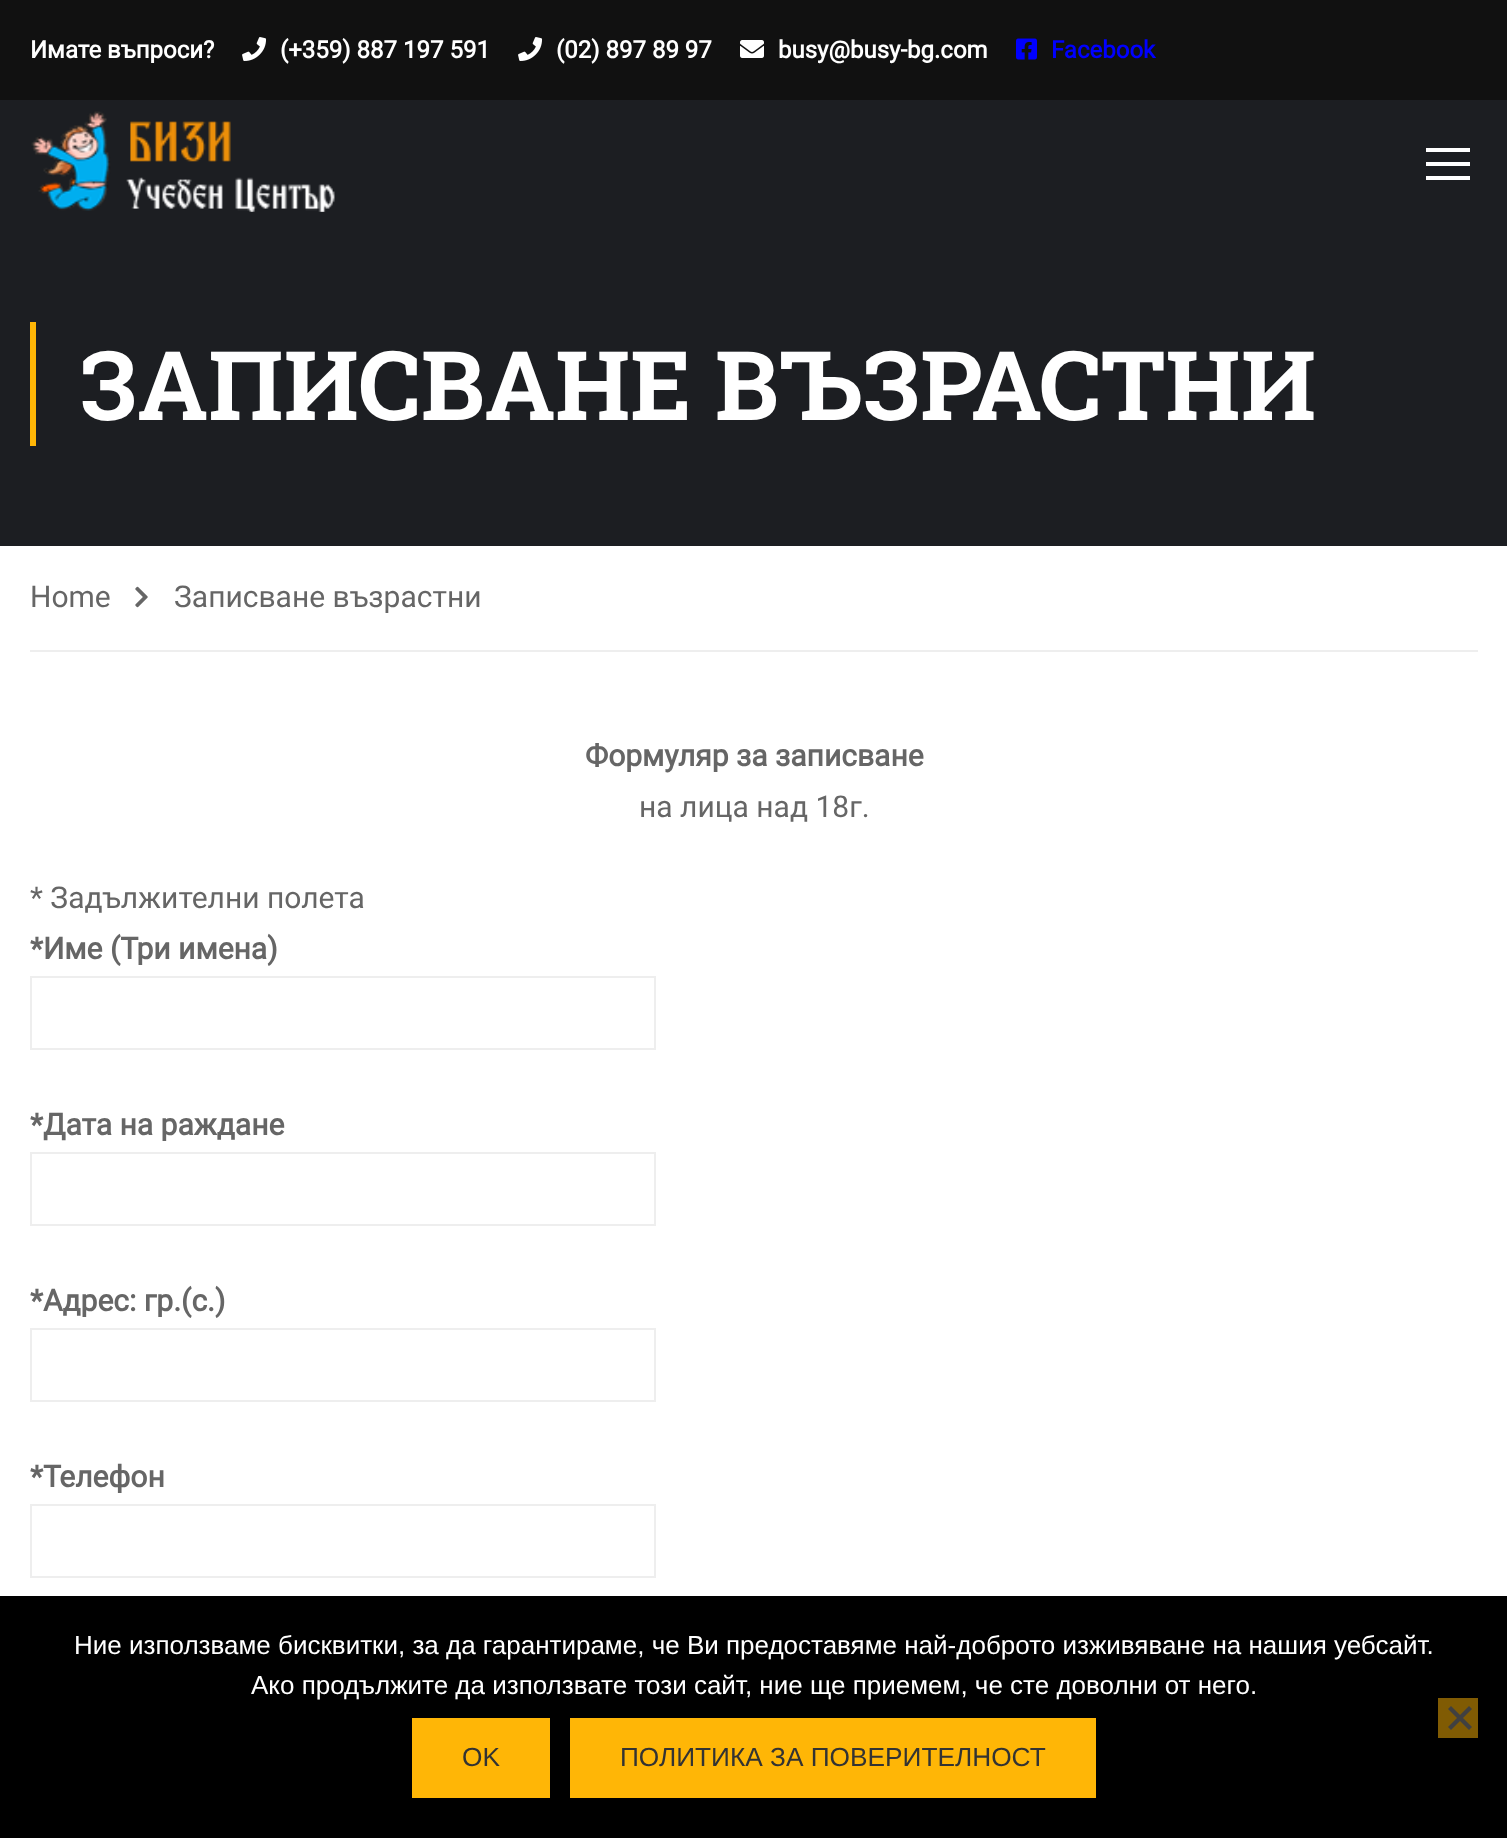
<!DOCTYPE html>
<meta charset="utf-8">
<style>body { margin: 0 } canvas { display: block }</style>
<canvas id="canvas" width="1507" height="1838"></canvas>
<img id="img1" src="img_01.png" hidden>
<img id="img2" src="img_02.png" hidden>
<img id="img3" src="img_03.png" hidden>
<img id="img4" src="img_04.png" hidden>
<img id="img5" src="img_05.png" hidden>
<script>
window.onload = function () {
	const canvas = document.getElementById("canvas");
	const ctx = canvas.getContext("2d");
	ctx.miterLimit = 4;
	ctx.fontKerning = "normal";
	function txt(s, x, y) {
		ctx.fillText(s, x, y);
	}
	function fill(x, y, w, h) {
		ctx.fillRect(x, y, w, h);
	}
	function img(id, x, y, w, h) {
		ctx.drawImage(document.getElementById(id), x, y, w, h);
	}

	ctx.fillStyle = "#FFFFFF";
	fill(0, 0, 1507, 1838);
	ctx.fillStyle = "#111111";
	fill(0, 0, 1507, 100);
	img("img1", 242, 37, 25, 24);
	img("img1", 518, 37, 25, 24);
	img("img2", 740, 40, 24, 18);
	img("img3", 1016, 38, 21, 22);
	ctx.fillStyle = "#1C1E22";
	fill(0, 100, 1507, 446);
	img("img4", 31, 111, 304, 101);
	ctx.fillStyle = "#FFFFFF";
	fill(1426, 148, 44, 4);
	fill(1426, 162, 44, 4);
	fill(1426, 176, 44, 4);
	ctx.fillStyle = "#FFB606";
	fill(30, 322, 6, 124);
	ctx.fillStyle = "#EEEEEE";
	fill(30, 650, 1448, 2);
	img("img5", 135, 586, 13, 22);
	ctx.strokeStyle = "#EEEEEE";
	ctx.lineWidth = 2;
	ctx.strokeRect(31, 977, 624, 72);
	ctx.strokeRect(31, 1153, 624, 72);
	ctx.strokeRect(31, 1329, 624, 72);
	ctx.strokeRect(31, 1505, 624, 72);
	ctx.fillStyle = "#000000";
	fill(0, 1596, 1507, 242);
	ctx.fillStyle = "#805B03";
	fill(1438, 1698, 40, 40);
	ctx.fillStyle = "#404040";
	ctx.beginPath();
	ctx.moveTo(1469, 1706);
	ctx.lineTo(1472, 1709);
	ctx.lineTo(1451, 1730);
	ctx.lineTo(1448, 1727);
	ctx.closePath();
	ctx.fill();
	ctx.beginPath();
	ctx.moveTo(1448, 1709);
	ctx.lineTo(1451, 1706);
	ctx.lineTo(1472, 1727);
	ctx.lineTo(1469, 1730);
	ctx.closePath();
	ctx.fill();
	ctx.fillStyle = "#FFB606";
	fill(412, 1718, 138, 80);
	fill(570, 1718, 526, 80);
	ctx.font = "bold 24px Roboto";
	ctx.fillStyle = "#FFFFFF";
	txt("Имате въпроси?", 30, 58);
	txt("(+359) 887 197 591", 280, 58);
	txt("(02) 897 89 97", 556, 58);
	txt("busy@busy-bg.com", 778, 58);
	ctx.fillStyle = "#0000FF";
	txt("Facebook", 1051, 58);
	ctx.font = "bold 96px Roboto Slab";
	ctx.fillStyle = "#FFFFFF";
	txt("ЗАПИСВАНЕ ВЪЗРАСТНИ", 80, 420);
	ctx.font = "30px Roboto";
	ctx.fillStyle = "#666666";
	txt("Home", 30, 607);
	txt("Записване възрастни", 174, 607);
	ctx.font = "bold 30px Roboto";
	txt("Формуляр за записване", 585, 766);
	ctx.font = "30px Roboto";
	txt("на лица над 18г.", 639, 817);
	txt("* Задължителни полета", 30, 908);
	ctx.font = "bold 30px Roboto";
	txt("*Име (Три имена)", 30, 959);
	txt("*Дата на раждане", 30, 1135);
	txt("*Адрес: гр.(с.)", 30, 1311);
	txt("*Телефон", 30, 1487);
	ctx.font = "26px Liberation Sans";
	ctx.fillStyle = "#FFFFFF";
	txt("Ние използваме бисквитки, за да гарантираме, че Ви предоставяме най-доброто изживяване на нашия уебсайт.", 74, 1654);
	txt("Ако продължите да използвате този сайт, ние ще приемем, че сте доволни от него.", 251, 1694);
	ctx.font = "26.25px Liberation Sans";
	ctx.fillStyle = "#333333";
	txt("OK", 462, 1766);
	txt("ПОЛИТИКА ЗА ПОВЕРИТЕЛНОСТ", 620, 1766);
};
</script>
